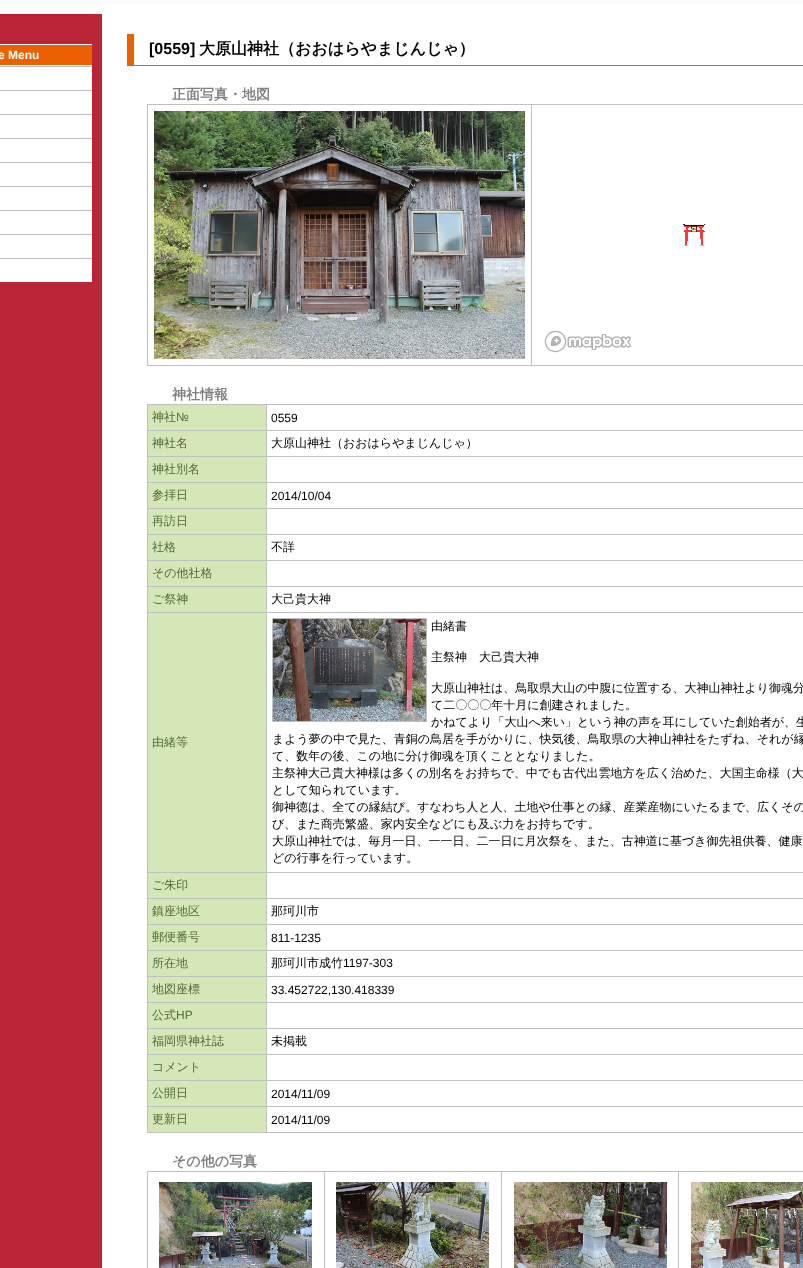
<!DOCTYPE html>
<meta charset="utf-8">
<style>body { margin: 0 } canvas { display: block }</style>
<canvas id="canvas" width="803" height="1268"></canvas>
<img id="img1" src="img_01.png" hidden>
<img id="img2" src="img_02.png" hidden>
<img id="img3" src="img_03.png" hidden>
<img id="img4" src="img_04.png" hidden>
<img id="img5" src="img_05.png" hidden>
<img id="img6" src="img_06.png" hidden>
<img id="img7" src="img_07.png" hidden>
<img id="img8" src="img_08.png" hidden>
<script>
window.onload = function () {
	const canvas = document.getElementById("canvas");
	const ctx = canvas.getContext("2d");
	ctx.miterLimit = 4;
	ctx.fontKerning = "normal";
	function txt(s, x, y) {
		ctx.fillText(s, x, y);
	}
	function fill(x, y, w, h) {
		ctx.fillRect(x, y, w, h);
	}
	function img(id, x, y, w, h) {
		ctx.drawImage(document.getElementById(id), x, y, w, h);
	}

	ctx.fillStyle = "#FFFFFF";
	fill(0, 0, 803, 1268);
	ctx.fillStyle = "#FAFBFD";
	fill(0, 0, 803, 4);
	ctx.fillStyle = "#BA2636";
	fill(0, 14, 102, 1254);
	ctx.fillStyle = "#EB6101";
	fill(0, 45, 92, 20);
	ctx.fillStyle = "#FFFFFF";
	fill(0, 44, 92, 1);
	fill(0, 65, 92, 1);
	fill(0, 67, 92, 215);
	ctx.fillStyle = "#C0C0C0";
	fill(0, 66, 92, 1);
	fill(0, 90, 92, 1);
	fill(0, 114, 92, 1);
	fill(0, 138, 92, 1);
	fill(0, 162, 92, 1);
	fill(0, 186, 92, 1);
	fill(0, 210, 92, 1);
	fill(0, 234, 92, 1);
	fill(0, 258, 92, 1);
	ctx.fillStyle = "#EB6101";
	fill(127, 65, 676, 1);
	fill(127, 34, 7, 32);
	ctx.fillStyle = "#C0C0C0";
	fill(531, 104, 272, 1);
	fill(531, 365, 272, 1);
	fill(531, 104, 1, 262);
	fill(147, 104, 385, 1);
	fill(147, 365, 385, 1);
	fill(147, 104, 1, 262);
	img("img1", 154, 111, 371, 248);
	img("img2", 683, 224, 22, 22);
	img("img3", 544, 330, 87, 23);
	ctx.fillStyle = "#D5E7B6";
	fill(148, 405, 118, 25);
	ctx.fillStyle = "#C0C0C0";
	fill(266, 404, 537, 1);
	fill(266, 430, 537, 1);
	fill(266, 456, 537, 1);
	fill(266, 482, 537, 1);
	fill(266, 508, 537, 1);
	fill(266, 534, 537, 1);
	fill(266, 560, 537, 1);
	fill(266, 586, 537, 1);
	fill(266, 612, 537, 1);
	fill(266, 872, 537, 1);
	fill(266, 898, 537, 1);
	fill(266, 924, 537, 1);
	fill(266, 950, 537, 1);
	fill(266, 976, 537, 1);
	fill(266, 1002, 537, 1);
	fill(266, 1028, 537, 1);
	fill(266, 1054, 537, 1);
	fill(266, 1080, 537, 1);
	fill(266, 1106, 537, 1);
	fill(266, 1132, 537, 1);
	fill(266, 1106, 1, 27);
	fill(147, 1106, 120, 1);
	fill(266, 1080, 1, 27);
	fill(147, 1080, 120, 1);
	fill(266, 1054, 1, 27);
	fill(147, 1054, 120, 1);
	fill(266, 1028, 1, 27);
	fill(147, 1028, 120, 1);
	fill(266, 1002, 1, 27);
	fill(147, 1002, 120, 1);
	fill(266, 976, 1, 27);
	fill(147, 976, 120, 1);
	fill(266, 950, 1, 27);
	fill(147, 950, 120, 1);
	fill(266, 924, 1, 27);
	fill(147, 924, 120, 1);
	fill(266, 898, 1, 27);
	fill(147, 898, 120, 1);
	fill(266, 872, 1, 27);
	fill(147, 872, 120, 1);
	fill(266, 612, 1, 261);
	fill(147, 612, 120, 1);
	fill(266, 586, 1, 27);
	fill(147, 586, 120, 1);
	fill(266, 560, 1, 27);
	fill(147, 560, 120, 1);
	fill(266, 534, 1, 27);
	fill(147, 534, 120, 1);
	fill(266, 508, 1, 27);
	fill(147, 508, 120, 1);
	fill(266, 482, 1, 27);
	fill(147, 482, 120, 1);
	fill(266, 456, 1, 27);
	fill(147, 456, 120, 1);
	fill(266, 430, 1, 27);
	fill(147, 430, 120, 1);
	fill(266, 404, 1, 27);
	fill(147, 404, 120, 1);
	fill(147, 1132, 120, 1);
	fill(147, 1106, 1, 27);
	fill(147, 1080, 1, 27);
	fill(147, 1054, 1, 27);
	fill(147, 1028, 1, 27);
	fill(147, 1002, 1, 27);
	fill(147, 976, 1, 27);
	fill(147, 950, 1, 27);
	fill(147, 924, 1, 27);
	fill(147, 898, 1, 27);
	fill(147, 872, 1, 27);
	fill(147, 612, 1, 261);
	fill(147, 586, 1, 27);
	fill(147, 560, 1, 27);
	fill(147, 534, 1, 27);
	fill(147, 508, 1, 27);
	fill(147, 482, 1, 27);
	fill(147, 456, 1, 27);
	fill(147, 430, 1, 27);
	fill(147, 404, 1, 27);
	ctx.fillStyle = "#D5E7B6";
	fill(148, 431, 118, 25);
	fill(148, 457, 118, 25);
	fill(148, 483, 118, 25);
	fill(148, 509, 118, 25);
	fill(148, 535, 118, 25);
	fill(148, 561, 118, 25);
	fill(148, 587, 118, 25);
	fill(148, 613, 118, 259);
	ctx.strokeStyle = "#C0C0C0";
	ctx.strokeRect(272.5, 618.5, 154, 103);
	img("img4", 273, 619, 153, 102);
	fill(148, 873, 118, 25);
	fill(148, 899, 118, 25);
	fill(148, 925, 118, 25);
	fill(148, 951, 118, 25);
	fill(148, 977, 118, 25);
	fill(148, 1003, 118, 25);
	fill(148, 1029, 118, 25);
	fill(148, 1055, 118, 25);
	fill(148, 1081, 118, 25);
	fill(148, 1107, 118, 25);
	ctx.fillStyle = "#C0C0C0";
	fill(678, 1171, 125, 1);
	fill(678, 1171, 1, 97);
	fill(501, 1171, 178, 1);
	fill(501, 1171, 1, 97);
	fill(324, 1171, 178, 1);
	fill(324, 1171, 1, 97);
	fill(147, 1171, 178, 1);
	fill(147, 1171, 1, 97);
	img("img5", 159, 1182, 153, 86);
	img("img6", 336, 1182, 153, 86);
	img("img7", 514, 1182, 153, 86);
	img("img8", 691, 1182, 112, 86);
	ctx.font = "bold 12px Liberation Sans";
	ctx.fillStyle = "#FFFFFF";
	txt("e Menu", -2, 59);
	ctx.font = "bold 16px Liberation Sans";
	ctx.fillStyle = "#000000";
	txt("[0559]", 149, 54);
	ctx.font = "bold 16px WenQuanYi Zen Hei";
	txt("大原山神社（おおはらやまじんじゃ）", 199, 54);
	ctx.font = "bold 14px WenQuanYi Zen Hei";
	ctx.fillStyle = "#808080";
	txt("正面写真・地図", 172, 99);
	txt("神社情報", 172, 399);
	ctx.font = "500 12px WenQuanYi Zen Hei";
	ctx.fillStyle = "#546839";
	txt("神社", 152, 421);
	ctx.font = "12px Liberation Sans";
	txt("№", 176, 421);
	ctx.fillStyle = "#000000";
	txt("0559", 271, 422);
	ctx.font = "500 12px WenQuanYi Zen Hei";
	ctx.fillStyle = "#546839";
	txt("神社名", 152, 447);
	ctx.fillStyle = "#000000";
	txt("大原山神社（おおはらやまじんじゃ）", 271, 447);
	ctx.fillStyle = "#546839";
	txt("神社別名", 152, 473);
	txt("参拝日", 152, 499);
	ctx.font = "12px Liberation Sans";
	ctx.fillStyle = "#000000";
	txt("2014/10/04", 271, 500);
	ctx.font = "500 12px WenQuanYi Zen Hei";
	ctx.fillStyle = "#546839";
	txt("再訪日", 152, 525);
	txt("社格", 152, 551);
	ctx.fillStyle = "#000000";
	txt("不詳", 271, 551);
	ctx.fillStyle = "#546839";
	txt("その他社格", 152, 577);
	txt("ご祭神", 152, 603);
	ctx.fillStyle = "#000000";
	txt("大己貴大神", 271, 603);
	ctx.fillStyle = "#546839";
	txt("由緒等", 152, 746);
	ctx.fillStyle = "#000000";
	txt("由緒書", 431, 630);
	txt("主祭神　大己貴大神", 431, 661);
	txt("大原山神社は、鳥取県大山の中腹に位置する、大神山神社より御魂分", 431, 692);
	txt("て二〇〇〇年十月に創建されました。", 431, 709);
	txt("かねてより「大山へ来い」という神の声を耳にしていた創始者が、生", 431, 726);
	txt("まよう夢の中で見た、青銅の鳥居を手がかりに、快気後、鳥取県の大神山神社をたずね、それが縁", 272, 743);
	txt("て、数年の後、この地に分け御魂を頂くこととなりました。", 272, 760);
	txt("主祭神大己貴大神様は多くの別名をお持ちで、中でも古代出雲地方を広く治めた、大国主命様（大", 272, 777);
	txt("として知られています。", 272, 794);
	txt("御神徳は、全ての縁結び。すなわち人と人、土地や仕事との縁、産業産物にいたるまで、広くその", 272, 811);
	txt("び、また商売繁盛、家内安全などにも及ぶ力をお持ちです。", 272, 828);
	txt("大原山神社では、毎月一日、一一日、二一日に月次祭を、また、古神道に基づき御先祖供養、健康", 272, 845);
	txt("どの行事を行っています。", 272, 862);
	ctx.fillStyle = "#546839";
	txt("ご朱印", 152, 889);
	txt("鎮座地区", 152, 915);
	ctx.fillStyle = "#000000";
	txt("那珂川市", 271, 915);
	ctx.fillStyle = "#546839";
	txt("郵便番号", 152, 941);
	ctx.font = "12px Liberation Sans";
	ctx.fillStyle = "#000000";
	txt("811-1235", 271, 942);
	ctx.font = "500 12px WenQuanYi Zen Hei";
	ctx.fillStyle = "#546839";
	txt("所在地", 152, 967);
	ctx.fillStyle = "#000000";
	txt("那珂川市成竹", 271, 967);
	ctx.font = "12px Liberation Sans";
	txt("1197-303", 343, 967);
	ctx.font = "500 12px WenQuanYi Zen Hei";
	ctx.fillStyle = "#546839";
	txt("地図座標", 152, 993);
	ctx.font = "12px Liberation Sans";
	ctx.fillStyle = "#000000";
	txt("33.452722,130.418339", 271, 994);
	ctx.font = "500 12px WenQuanYi Zen Hei";
	ctx.fillStyle = "#546839";
	txt("公式", 152, 1019);
	ctx.font = "12px Liberation Sans";
	txt("HP", 176, 1019);
	ctx.font = "500 12px WenQuanYi Zen Hei";
	txt("福岡県神社誌", 152, 1045);
	ctx.fillStyle = "#000000";
	txt("未掲載", 271, 1045);
	ctx.fillStyle = "#546839";
	txt("コメント", 152, 1071);
	txt("公開日", 152, 1097);
	ctx.font = "12px Liberation Sans";
	ctx.fillStyle = "#000000";
	txt("2014/11/09", 271, 1098);
	ctx.font = "500 12px WenQuanYi Zen Hei";
	ctx.fillStyle = "#546839";
	txt("更新日", 152, 1123);
	ctx.font = "12px Liberation Sans";
	ctx.fillStyle = "#000000";
	txt("2014/11/09", 271, 1124);
	ctx.font = "bold 14px WenQuanYi Zen Hei";
	ctx.fillStyle = "#808080";
	txt("その他の写真", 172, 1166);
};
</script>
